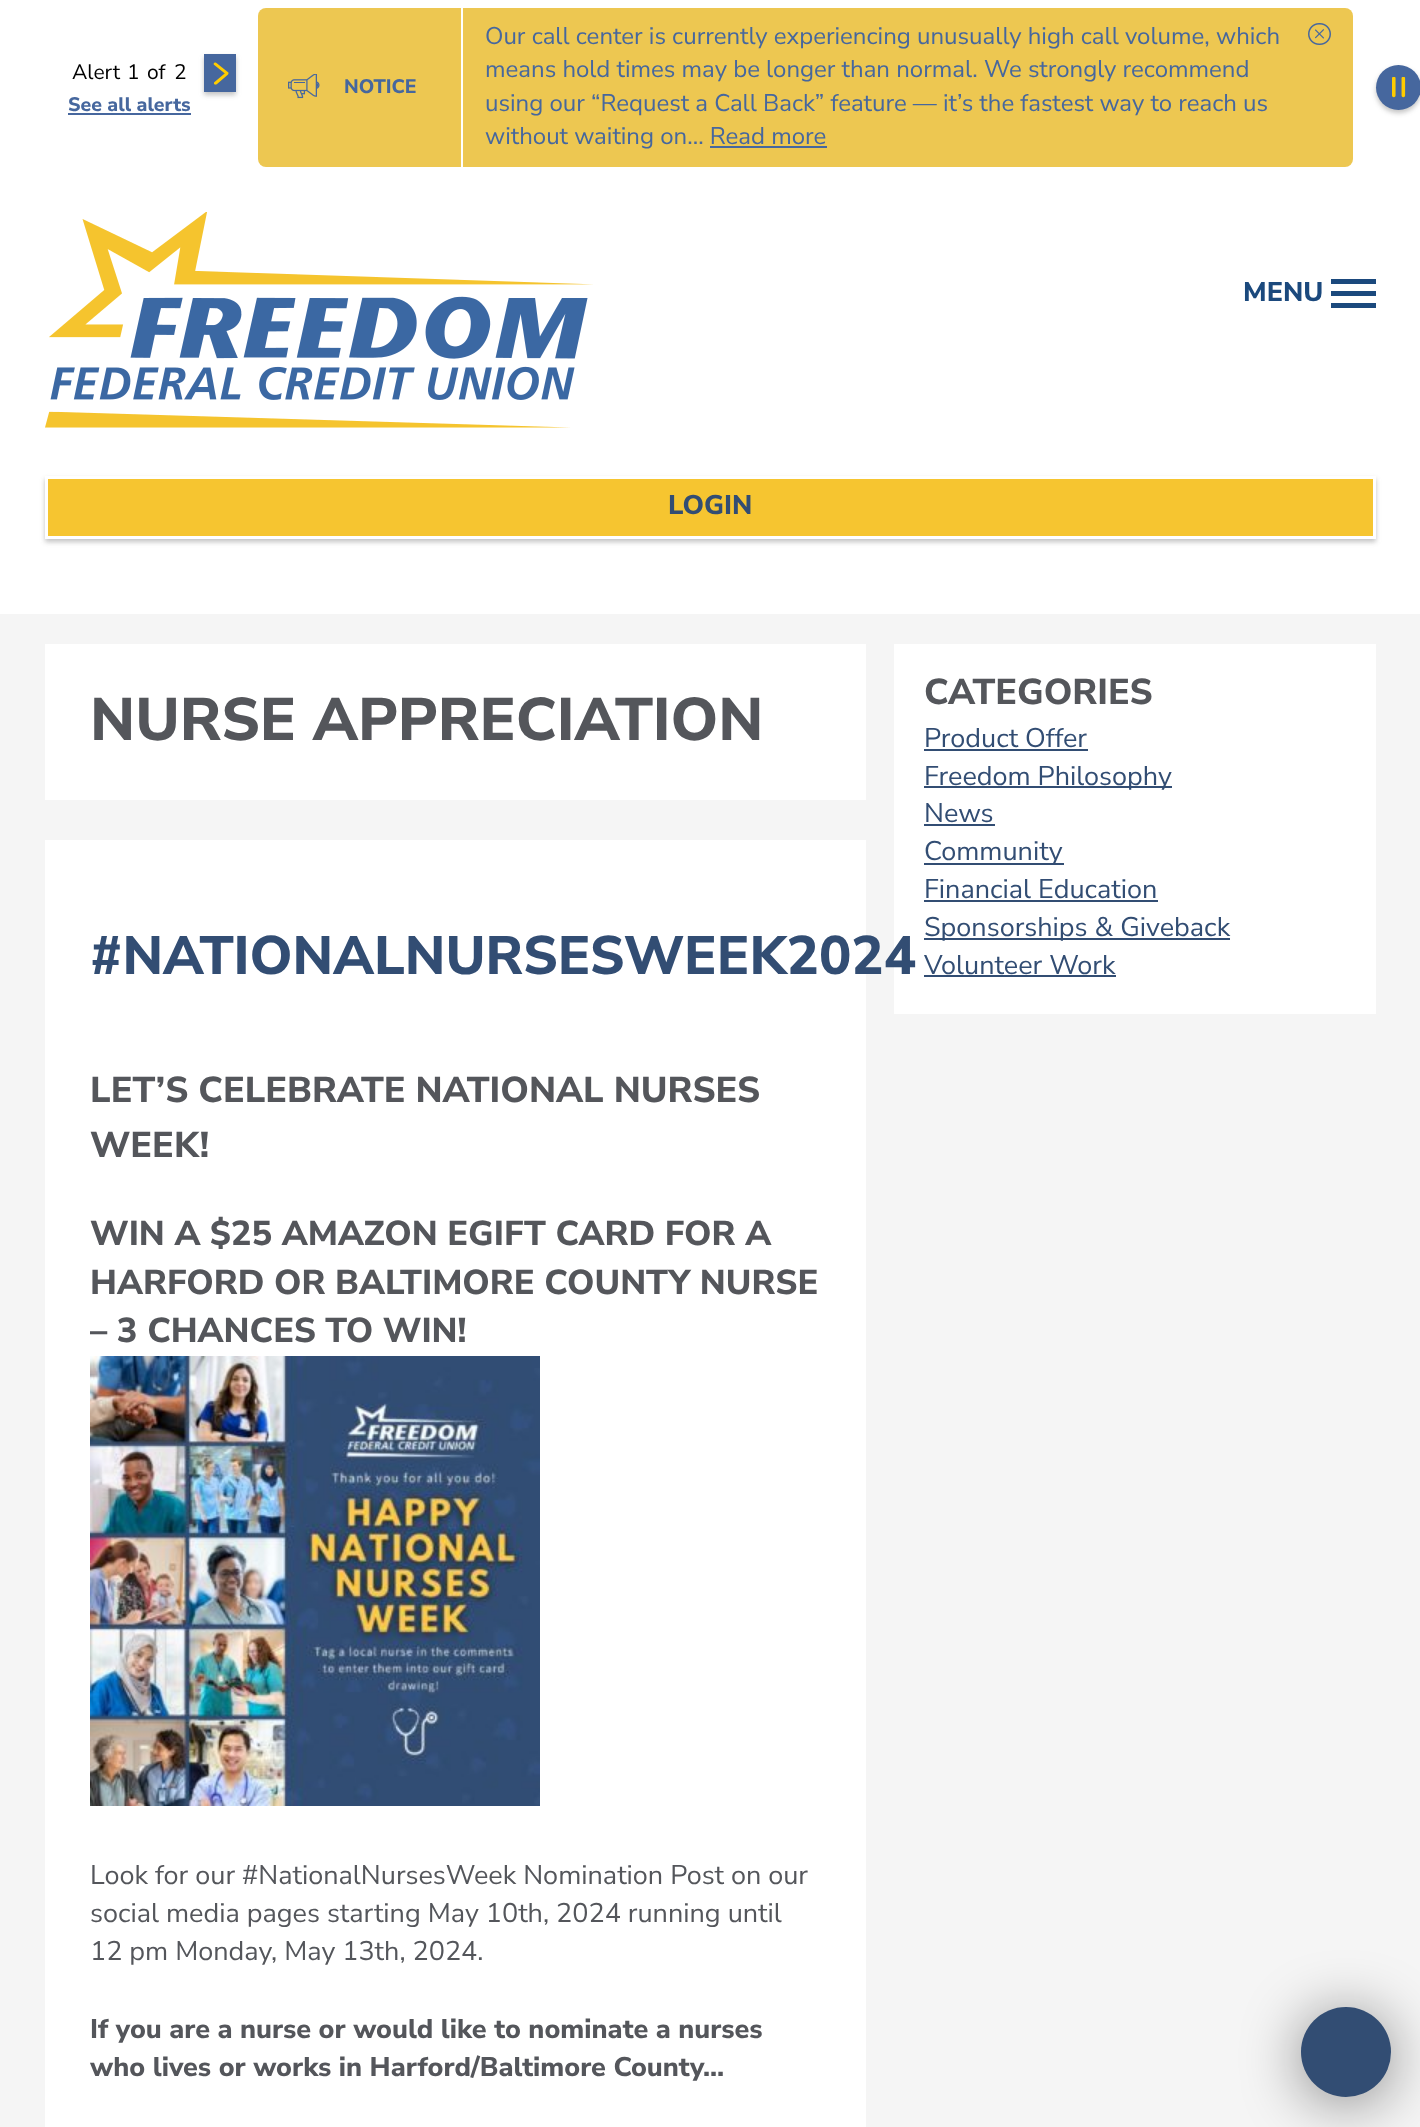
<!DOCTYPE html>
<meta charset="utf-8">
<style>body { margin: 0 } canvas { display: block }</style>
<canvas id="canvas" width="1420" height="2127"></canvas>
<img id="img1" src="img_01.png" hidden>
<img id="img2" src="img_02.png" hidden>
<img id="img3" src="img_03.png" hidden>
<img id="img4" src="img_04.png" hidden>
<img id="img5" src="img_05.png" hidden>
<img id="img6" src="img_06.png" hidden>
<script>
window.onload = function () {
	const canvas = document.getElementById("canvas");
	const ctx = canvas.getContext("2d");
	ctx.miterLimit = 4;
	ctx.fontKerning = "normal";
	function txt(s, x, y) {
		ctx.fillText(s, x, y);
	}
	function fill(x, y, w, h) {
		ctx.fillRect(x, y, w, h);
	}
	function round(x, y, w, h, r) {
		ctx.beginPath();
		ctx.roundRect(x, y, w, h, r);
		ctx.fill();
	}
	function img(id, x, y, w, h) {
		ctx.drawImage(document.getElementById(id), x, y, w, h);
	}

	ctx.fillStyle = "#FFFFFF";
	fill(0, 0, 1420, 2127);
	ctx.fillStyle = "rgba(55, 55, 55, 0.3)";
	ctx.filter = "blur(2.5px)";
	ctx.beginPath();
	ctx.rect(204, 57, 32, 38);
	ctx.fill();
	ctx.filter = "none";
	ctx.fillStyle = "#46679E";
	fill(204, 54, 32, 38);
	img("img1", 213, 62, 16, 23);
	fill(68, 113, 123, 2);
	ctx.fillStyle = "#EDC751";
	round(258, 8, 1095, 159, 8);
	ctx.fillStyle = "#FFFFFF";
	fill(461, 8, 2, 159);
	img("img2", 288, 74, 32, 25);
	ctx.fillStyle = "#46679E";
	fill(710, 146, 117, 2);
	img("img3", 1308, 23, 23, 22);
	ctx.fillStyle = "rgba(55, 55, 55, 0.3)";
	ctx.filter = "blur(2.5px)";
	ctx.beginPath();
	ctx.roundRect(1376, 68, 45, 45, 22.5);
	ctx.fill();
	ctx.filter = "none";
	ctx.fillStyle = "#46679E";
	ctx.beginPath();
	ctx.arc(1398.5, 87.5, 22.5, 0, Math.PI * 2);
	ctx.fill();
	img("img4", 1392, 77, 14, 21);
	img("img5", 45, 212, 548, 216);
	ctx.fillStyle = "#1B497D";
	fill(1331, 291, 45, 5);
	fill(1331, 279, 45, 5);
	fill(1331, 303, 45, 5);
	ctx.fillStyle = "rgba(55, 55, 55, 0.3)";
	ctx.filter = "blur(2.5px)";
	ctx.beginPath();
	ctx.rect(45, 479, 1331, 63);
	ctx.fill();
	ctx.filter = "none";
	ctx.fillStyle = "#F6C530";
	ctx.beginPath();
	ctx.rect(46.5, 477.5, 1328, 60);
	ctx.fill();
	ctx.strokeStyle = "#FFFFFF";
	ctx.lineWidth = 3;
	ctx.stroke();
	ctx.fillStyle = "#F5F5F5";
	fill(0, 614, 1420, 1513);
	ctx.fillStyle = "#FFFFFF";
	fill(45, 644, 821, 156);
	fill(45, 840, 821, 1287);
	img("img6", 90, 1356, 450, 450);
	fill(894, 644, 482, 370);
	ctx.fillStyle = "#324D73";
	fill(924, 749, 164, 2);
	fill(924, 786, 248, 2);
	fill(924, 824, 71, 2);
	fill(924, 863, 140, 2);
	fill(924, 900, 234, 2);
	fill(924, 938, 306, 2);
	fill(924, 975, 192, 2);
	ctx.fillStyle = "rgba(0, 0, 0, 0.46)";
	ctx.filter = "blur(30px)";
	ctx.beginPath();
	ctx.roundRect(1301, 2013, 90, 90, 45);
	ctx.fill();
	ctx.filter = "none";
	ctx.fillStyle = "#324D73";
	ctx.beginPath();
	ctx.arc(1346, 2052, 45, 0, Math.PI * 2);
	ctx.fill();
	ctx.font = "21px Nunito Sans";
	ctx.fillStyle = "#000000";
	txt("Alert", 72, 79);
	txt("1", 127, 79);
	txt("of", 147, 79);
	txt("2", 174, 79);
	ctx.font = "800 19.5px Nunito Sans";
	ctx.fillStyle = "#46679E";
	txt("See all alerts", 68, 111);
	txt("NOTICE", 344, 93);
	ctx.font = "24px Nunito Sans";
	txt("Our call center is currently experiencing unusually high call volume, which", 485, 44);
	txt("means hold times may be longer than normal. We strongly recommend", 485, 77);
	txt("using our “Request a Call Back” feature — it’s the fastest way to reach us", 485, 111);
	txt("without waiting on... Read more", 485, 144);
	ctx.font = "800 27px Nunito Sans";
	ctx.fillStyle = "#1B497D";
	txt("MENU", 1243, 301);
	ctx.fillStyle = "#324D73";
	txt("LOGIN", 668, 514);
	ctx.font = "800 60px Nunito Sans";
	ctx.fillStyle = "#54565B";
	txt("NURSE APPRECIATION", 90, 740);
	ctx.font = "800 54px Nunito Sans";
	ctx.fillStyle = "#324D73";
	txt("#NATIONALNURSESWEEK2024", 90, 974);
	ctx.font = "800 36px Nunito Sans";
	ctx.fillStyle = "#54565B";
	txt("LET’S CELEBRATE NATIONAL NURSES", 90, 1102);
	txt("WEEK!", 90, 1157);
	ctx.font = "800 34.5px Nunito Sans";
	txt("WIN A $25 AMAZON EGIFT CARD FOR A", 90, 1245);
	txt("HARFORD OR BALTIMORE COUNTY NURSE", 90, 1294);
	txt("– 3 CHANCES TO WIN!", 90, 1342);
	ctx.font = "27px Nunito Sans";
	txt("Look for our #NationalNursesWeek Nomination Post on our", 90, 1884);
	txt("social media pages starting May 10th, 2024 running until", 90, 1922);
	txt("12 pm Monday, May 13th, 2024.", 90, 1960);
	ctx.font = "800 27px Nunito Sans";
	txt("If you are a nurse or would like to nominate a nurses", 90, 2038);
	txt("who lives or works in Harford/Baltimore County…", 90, 2076);
	ctx.font = "800 36px Nunito Sans";
	txt("CATEGORIES", 924, 704);
	ctx.font = "27px Nunito Sans";
	ctx.fillStyle = "#324D73";
	txt("Product Offer", 924, 747);
	txt("Freedom Philosophy", 924, 785);
	txt("News", 924, 822);
	txt("Community", 924, 860);
	txt("Financial Education", 924, 898);
	txt("Sponsorships & Giveback", 924, 936);
	txt("Volunteer Work", 924, 974);
};
</script>
